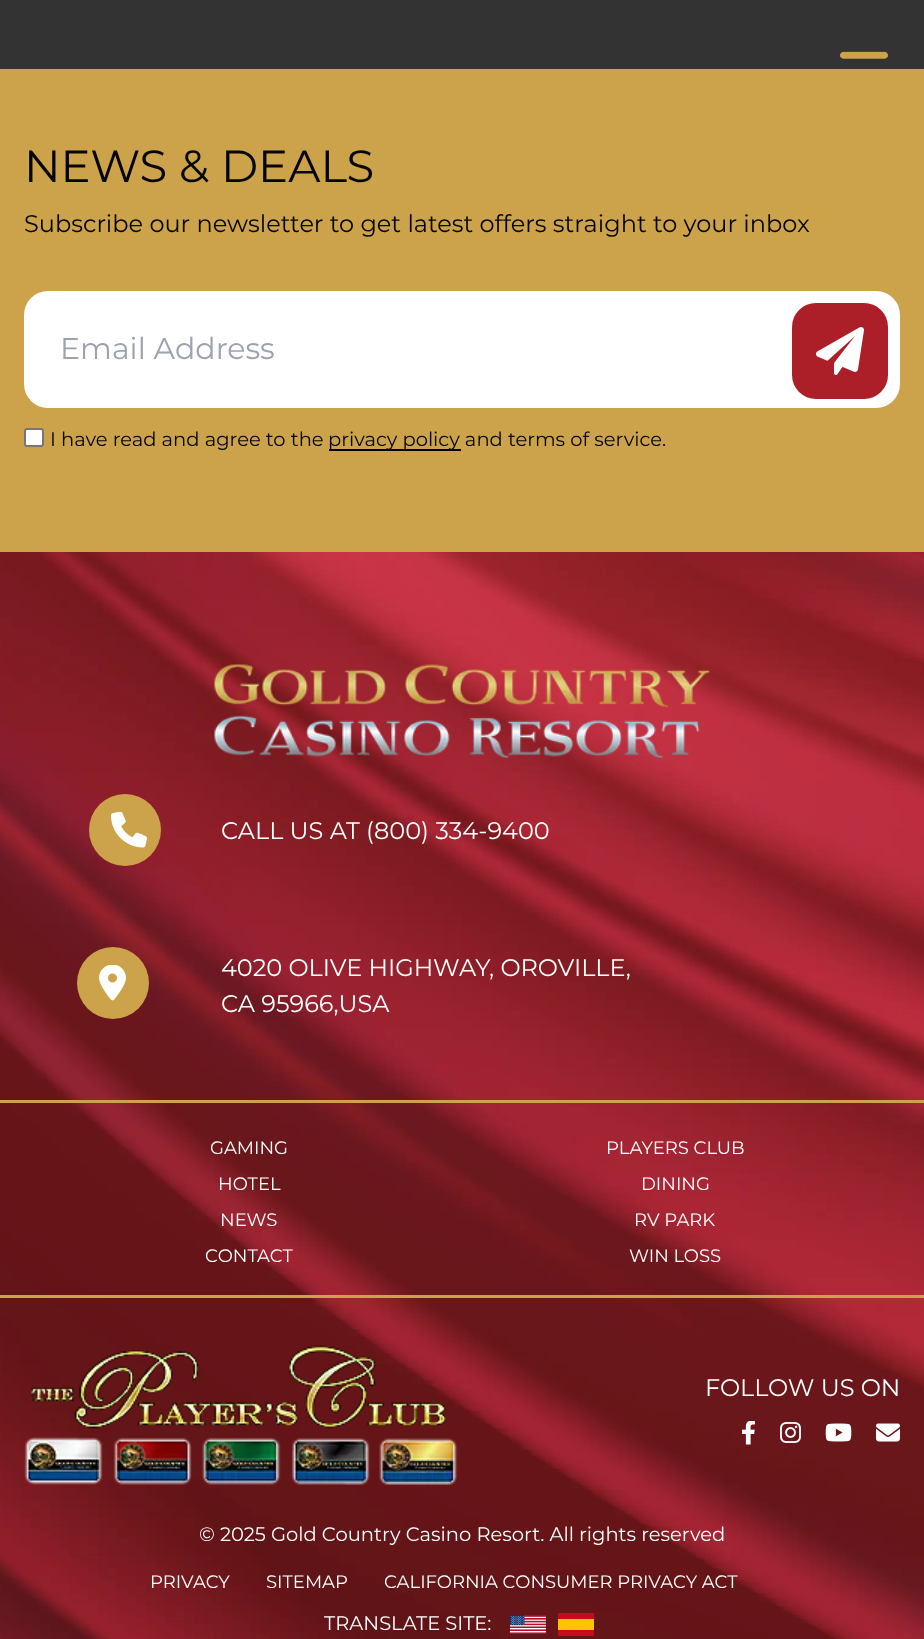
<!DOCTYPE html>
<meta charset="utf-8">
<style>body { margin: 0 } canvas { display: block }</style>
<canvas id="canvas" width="924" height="1639"></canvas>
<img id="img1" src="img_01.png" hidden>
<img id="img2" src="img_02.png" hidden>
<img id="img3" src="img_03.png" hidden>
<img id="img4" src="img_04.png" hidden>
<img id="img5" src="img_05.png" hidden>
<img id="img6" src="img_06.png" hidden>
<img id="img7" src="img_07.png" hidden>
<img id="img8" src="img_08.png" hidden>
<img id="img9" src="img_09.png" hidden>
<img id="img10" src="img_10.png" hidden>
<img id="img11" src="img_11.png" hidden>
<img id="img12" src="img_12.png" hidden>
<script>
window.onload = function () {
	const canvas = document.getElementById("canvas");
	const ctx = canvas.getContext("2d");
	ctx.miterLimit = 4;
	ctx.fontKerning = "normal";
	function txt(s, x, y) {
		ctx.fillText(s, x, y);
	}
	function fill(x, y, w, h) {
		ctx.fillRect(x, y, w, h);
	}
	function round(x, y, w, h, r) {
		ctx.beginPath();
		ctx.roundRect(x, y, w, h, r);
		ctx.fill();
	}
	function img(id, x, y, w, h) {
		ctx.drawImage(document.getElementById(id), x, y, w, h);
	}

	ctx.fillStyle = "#333333";
	fill(0, 0, 924, 1639);
	img("img1", 840, 51, 48, 8);
	ctx.fillStyle = "#CCA34A";
	fill(0, 69, 924, 483);
	ctx.fillStyle = "#FFFFFF";
	round(24, 291, 876, 117, 24);
	ctx.fillStyle = "#AC1F29";
	round(792, 303, 96, 96, 24);
	img("img2", 816, 327, 48, 48);
	ctx.fillStyle = "#FFFFFF";
	ctx.beginPath();
	ctx.roundRect(25, 429, 18, 17, 2);
	ctx.fill();
	ctx.strokeStyle = "#767676";
	ctx.lineWidth = 2;
	ctx.stroke();
	ctx.fillStyle = "#000000";
	fill(329, 449, 132, 2);
	img("img3", 0, 552, 924, 1087);
	img("img4", 214, 664, 496, 94);
	ctx.fillStyle = "#CCA34A";
	ctx.beginPath();
	ctx.arc(125, 830, 36, 0, Math.PI * 2);
	ctx.fill();
	img("img5", 111, 812, 36, 36);
	ctx.beginPath();
	ctx.arc(113, 983, 36, 0, Math.PI * 2);
	ctx.fill();
	img("img6", 99, 965, 27, 36);
	fill(0, 1100, 924, 3);
	fill(0, 1295, 924, 3);
	img("img7", 24, 1345, 434, 140);
	img("img8", 742, 1421, 13, 24);
	img("img9", 780, 1422, 21, 21);
	img("img10", 825, 1423, 27, 19);
	img("img11", 876, 1423, 24, 19);
	img("img12", 510, 1615, 36, 19);
	ctx.fillStyle = "#C60B1E";
	fill(558, 1630, 36, 6);
	ctx.fillStyle = "#FFC400";
	fill(558, 1619, 36, 11);
	ctx.fillStyle = "#C60B1E";
	fill(558, 1613, 36, 6);
	ctx.font = "45px Montserrat";
	ctx.fillStyle = "#040404";
	txt("NEWS & DEALS", 24, 182);
	ctx.font = "24px Montserrat";
	txt("Subscribe our newsletter to get latest offers straight to your inbox", 24, 232);
	ctx.font = "30px Montserrat";
	ctx.fillStyle = "#9CA3AF";
	txt("Email Address", 60, 359);
	ctx.font = "19.5px Montserrat";
	ctx.fillStyle = "#040404";
	txt("I have read and agree to the", 50, 446);
	txt("privacy policy and terms of service.", 328, 446);
	ctx.font = "24px Montserrat";
	ctx.fillStyle = "#FFFFFF";
	txt("CALL US AT (800) 334-9400", 221, 839);
	txt("4020 OLIVE HIGHWAY", 221, 976);
	txt(", OROVILLE,", 489, 976);
	txt("CA 95966,USA", 221, 1012);
	ctx.font = "18px Montserrat";
	txt("GAMING", 210, 1154);
	txt("PLAYERS CLUB", 606, 1154);
	txt("HOTEL", 218, 1190);
	txt("DINING", 641, 1190);
	txt("NEWS", 220, 1226);
	txt("RV PARK", 634, 1226);
	txt("CONTACT", 205, 1262);
	txt("WIN LOSS", 629, 1262);
	ctx.font = "24px Montserrat";
	txt("FOLLOW US ON", 705, 1396);
	ctx.font = "19.5px Montserrat";
	txt("© 2025 Gold Country Casino Resort. All rights reserved", 199, 1541);
	ctx.font = "18px Montserrat";
	txt("PRIVACY", 150, 1588);
	txt("SITEMAP", 266, 1588);
	txt("CALIFORNIA CONSUMER PRIVACY ACT", 384, 1588);
	ctx.font = "19.5px Montserrat";
	txt("TRANSLATE SITE:", 324, 1630);
};
</script>
